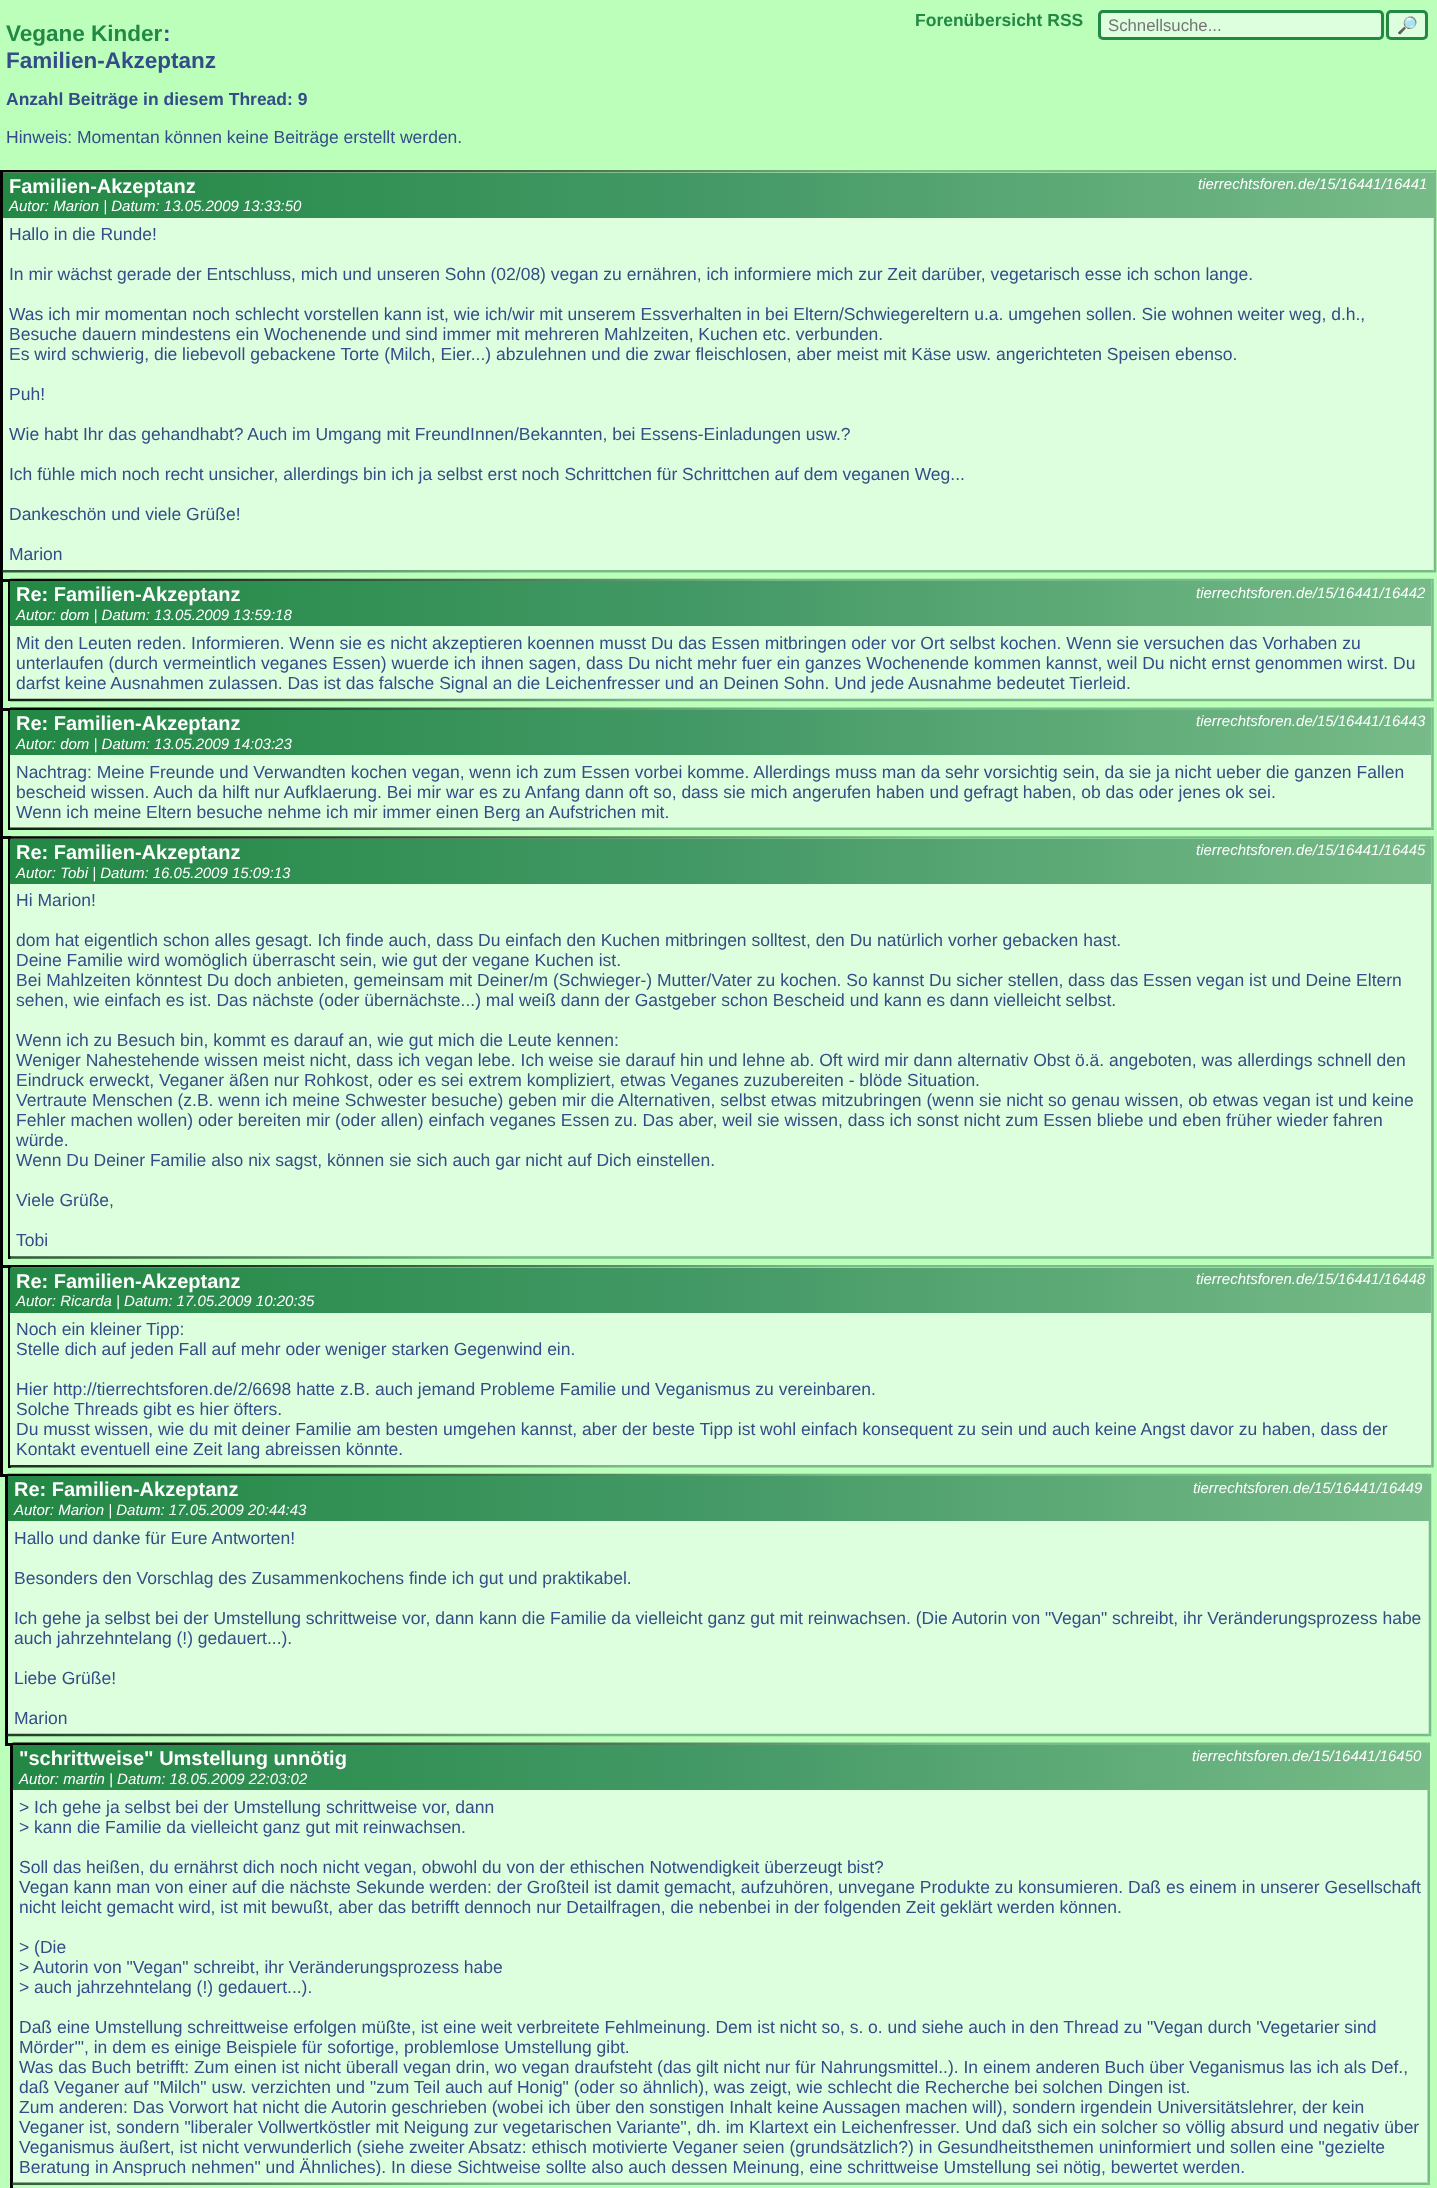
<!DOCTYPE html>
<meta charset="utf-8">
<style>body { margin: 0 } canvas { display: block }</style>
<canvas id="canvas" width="1437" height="2188"></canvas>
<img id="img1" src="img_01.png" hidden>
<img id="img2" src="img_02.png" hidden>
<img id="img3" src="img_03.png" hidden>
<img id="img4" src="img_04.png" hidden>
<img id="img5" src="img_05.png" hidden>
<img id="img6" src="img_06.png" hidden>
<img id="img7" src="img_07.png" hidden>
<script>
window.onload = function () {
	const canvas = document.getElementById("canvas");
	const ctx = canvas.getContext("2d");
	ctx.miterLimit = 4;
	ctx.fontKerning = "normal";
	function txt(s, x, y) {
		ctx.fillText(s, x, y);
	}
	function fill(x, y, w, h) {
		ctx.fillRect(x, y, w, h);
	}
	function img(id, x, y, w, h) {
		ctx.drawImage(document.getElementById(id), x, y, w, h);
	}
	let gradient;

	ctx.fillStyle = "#BBFFBB";
	fill(0, 0, 1437, 2188);
	ctx.fillStyle = "#DDFFDD";
	ctx.beginPath();
	ctx.roundRect(1099.5, 11.5, 283, 27, 3.5);
	ctx.fill();
	ctx.strokeStyle = "#228844";
	ctx.lineWidth = 3;
	ctx.stroke();
	ctx.beginPath();
	ctx.roundRect(1387.5, 11.5, 39, 27, 3.5);
	ctx.fill();
	ctx.stroke();
	ctx.fillStyle = "#000000";
	fill(0, 170, 3, 409);
	ctx.fillStyle = "#DDFFDD";
	fill(3, 218, 1431, 352);
	img("img1", 2, 170, 1435, 403);
	gradient = ctx.createLinearGradient(2.5, 195, 1434, 195);
	gradient.addColorStop(0, "#228844");
	gradient.addColorStop(0.5, "#449966");
	gradient.addColorStop(1, "#77BB88");
	ctx.fillStyle = gradient;
	fill(3, 173, 1431, 45);
	ctx.fillStyle = "#000000";
	fill(0, 579, 3, 129);
	fill(3, 579, 7, 3);
	fill(8, 579, 2, 122);
	ctx.fillStyle = "#DDFFDD";
	fill(10, 626, 1421, 73);
	img("img2", 10, 578, 1424, 124);
	gradient = ctx.createLinearGradient(10, 604, 1431, 604);
	gradient.addColorStop(0, "#228844");
	gradient.addColorStop(0.5, "#449966");
	gradient.addColorStop(1, "#77BB88");
	ctx.fillStyle = gradient;
	fill(10, 581, 1421, 45);
	ctx.fillStyle = "#000000";
	fill(0, 708, 3, 128);
	fill(3, 708, 7, 3);
	fill(8, 708, 2, 122);
	ctx.fillStyle = "#DDFFDD";
	fill(10, 755, 1421, 73);
	img("img3", 10, 707, 1424, 123);
	gradient = ctx.createLinearGradient(10, 733, 1431, 733);
	gradient.addColorStop(0, "#228844");
	gradient.addColorStop(0.5, "#449966");
	gradient.addColorStop(1, "#77BB88");
	ctx.fillStyle = gradient;
	fill(10, 710, 1421, 45);
	ctx.fillStyle = "#000000";
	fill(0, 836, 3, 429);
	fill(3, 836, 7, 3);
	fill(8, 836, 3, 423);
	ctx.fillStyle = "#DDFFDD";
	fill(10, 884, 1421, 372);
	img("img4", 10, 836, 1424, 423);
	gradient = ctx.createLinearGradient(10, 861, 1431, 861);
	gradient.addColorStop(0, "#228844");
	gradient.addColorStop(0.5, "#449966");
	gradient.addColorStop(1, "#77BB88");
	ctx.fillStyle = gradient;
	fill(10, 839, 1421, 45);
	ctx.fillStyle = "#000000";
	fill(0, 1265, 3, 209);
	fill(3, 1265, 7, 3);
	fill(8, 1265, 3, 203);
	ctx.fillStyle = "#DDFFDD";
	fill(10, 1313, 1421, 152);
	img("img5", 10, 1265, 1424, 203);
	gradient = ctx.createLinearGradient(10, 1290, 1431, 1290);
	gradient.addColorStop(0, "#228844");
	gradient.addColorStop(0.5, "#449966");
	gradient.addColorStop(1, "#77BB88");
	ctx.fillStyle = gradient;
	fill(10, 1268, 1421, 45);
	ctx.fillStyle = "#000000";
	fill(0, 1474, 8, 3);
	fill(5, 1474, 3, 262);
	ctx.fillStyle = "#DDFFDD";
	fill(8, 1521, 1421, 213);
	ctx.fillStyle = "#000000";
	fill(5, 1736, 3, 7);
	img("img6", 7, 1473, 1425, 264);
	gradient = ctx.createLinearGradient(7.5, 1499, 1429, 1499);
	gradient.addColorStop(0, "#228844");
	gradient.addColorStop(0.5, "#449966");
	gradient.addColorStop(1, "#77BB88");
	ctx.fillStyle = gradient;
	fill(8, 1476, 1421, 45);
	ctx.fillStyle = "#000000";
	fill(5, 1743, 8, 3);
	fill(10, 1743, 3, 442);
	ctx.fillStyle = "#DDFFDD";
	fill(13, 1790, 1415, 393);
	img("img7", 12, 1742, 1418, 443);
	gradient = ctx.createLinearGradient(13, 1768, 1428, 1768);
	gradient.addColorStop(0, "#228844");
	gradient.addColorStop(0.5, "#449966");
	gradient.addColorStop(1, "#77BB88");
	ctx.fillStyle = gradient;
	fill(13, 1745, 1415, 45);
	ctx.fillStyle = "#000000";
	fill(10, 2185, 3, 3);
	ctx.font = "bold 22.5px Liberation Sans";
	ctx.fillStyle = "#228844";
	txt("Vegane Kinder", 6, 41);
	ctx.fillStyle = "#344D88";
	txt(":", 163, 41);
	txt("Familien-Akzeptanz", 6, 68);
	ctx.font = "bold 17.5px Liberation Sans";
	ctx.fillStyle = "#228844";
	txt("Forenübersicht RSS", 915, 26);
	ctx.font = "16.75px Liberation Sans";
	ctx.fillStyle = "#757575";
	txt("Schnellsuche...", 1108, 31);
	ctx.font = "16.75px Noto Color Emoji";
	ctx.fillStyle = "#000000";
	txt("🔎", 1397, 31);
	ctx.font = "bold 17.5px Liberation Sans";
	ctx.fillStyle = "#344D88";
	txt("Anzahl Beiträge in diesem Thread: 9", 6, 105);
	ctx.font = "17.5px Liberation Sans";
	txt("Hinweis: Momentan können keine Beiträge erstellt werden.", 6, 143);
	ctx.font = "bold 20px Liberation Sans";
	ctx.fillStyle = "#FFFFFF";
	txt("Familien-Akzeptanz", 9, 193);
	ctx.font = "italic 15px Liberation Sans";
	txt("tierrechtsforen.de/15/16441/16441", 1198, 189);
	txt("Autor: Marion | Datum: 13.05.2009 13:33:50", 9, 211);
	ctx.font = "17.5px Liberation Sans";
	ctx.fillStyle = "#344D88";
	txt("Hallo in die Runde!", 9, 240);
	txt("In mir wächst gerade der Entschluss, mich und unseren Sohn (02/08) vegan zu ernähren, ich informiere mich zur Zeit darüber, vegetarisch esse ich schon lange.", 9, 280);
	txt("Was ich mir momentan noch schlecht vorstellen kann ist, wie ich/wir mit unserem Essverhalten in bei Eltern/Schwiegereltern u.a. umgehen sollen. Sie wohnen weiter weg, d.h.,", 9, 320);
	txt("Besuche dauern mindestens ein Wochenende und sind immer mit mehreren Mahlzeiten, Kuchen etc. verbunden.", 9, 340);
	txt("Es wird schwierig, die liebevoll gebackene Torte (Milch, Eier...) abzulehnen und die zwar fleischlosen, aber meist mit Käse usw. angerichteten Speisen ebenso.", 9, 360);
	txt("Puh!", 9, 400);
	txt("Wie habt Ihr das gehandhabt? Auch im Umgang mit FreundInnen/Bekannten, bei Essens-Einladungen usw.?", 9, 440);
	txt("Ich fühle mich noch recht unsicher, allerdings bin ich ja selbst erst noch Schrittchen für Schrittchen auf dem veganen Weg...", 9, 480);
	txt("Dankeschön und viele Grüße!", 9, 520);
	txt("Marion", 9, 560);
	ctx.font = "bold 20px Liberation Sans";
	ctx.fillStyle = "#FFFFFF";
	txt("Re: Familien-Akzeptanz", 16, 601);
	ctx.font = "italic 15px Liberation Sans";
	txt("tierrechtsforen.de/15/16441/16442", 1196, 598);
	txt("Autor: dom | Datum: 13.05.2009 13:59:18", 16, 620);
	ctx.font = "17.5px Liberation Sans";
	ctx.fillStyle = "#344D88";
	txt("Mit den Leuten reden. Informieren. Wenn sie es nicht akzeptieren koennen musst Du das Essen mitbringen oder vor Ort selbst kochen. Wenn sie versuchen das Vorhaben zu", 16, 649);
	txt("unterlaufen (durch vermeintlich veganes Essen) wuerde ich ihnen sagen, dass Du nicht mehr fuer ein ganzes Wochenende kommen kannst, weil Du nicht ernst genommen wirst. Du", 16, 669);
	txt("darfst keine Ausnahmen zulassen. Das ist das falsche Signal an die Leichenfresser und an Deinen Sohn. Und jede Ausnahme bedeutet Tierleid.", 16, 689);
	ctx.font = "bold 20px Liberation Sans";
	ctx.fillStyle = "#FFFFFF";
	txt("Re: Familien-Akzeptanz", 16, 730);
	ctx.font = "italic 15px Liberation Sans";
	txt("tierrechtsforen.de/15/16441/16443", 1196, 726);
	txt("Autor: dom | Datum: 13.05.2009 14:03:23", 16, 749);
	ctx.font = "17.5px Liberation Sans";
	ctx.fillStyle = "#344D88";
	txt("Nachtrag: Meine Freunde und Verwandten kochen vegan, wenn ich zum Essen vorbei komme. Allerdings muss man da sehr vorsichtig sein, da sie ja nicht ueber die ganzen Fallen", 16, 778);
	txt("bescheid wissen. Auch da hilft nur Aufklaerung. Bei mir war es zu Anfang dann oft so, dass sie mich angerufen haben und gefragt haben, ob das oder jenes ok sei.", 16, 798);
	ctx.save();
	ctx.beginPath();
	ctx.rect(10, 761, 1421, 60);
	ctx.clip();
	txt("Wenn ich meine Eltern besuche nehme ich mir immer einen Berg an Aufstrichen mit.", 16, 818);
	ctx.restore();
	ctx.font = "bold 20px Liberation Sans";
	ctx.fillStyle = "#FFFFFF";
	txt("Re: Familien-Akzeptanz", 16, 859);
	ctx.font = "italic 15px Liberation Sans";
	txt("tierrechtsforen.de/15/16441/16445", 1196, 855);
	txt("Autor: Tobi | Datum: 16.05.2009 15:09:13", 16, 878);
	ctx.font = "17.5px Liberation Sans";
	ctx.fillStyle = "#344D88";
	txt("Hi Marion!", 16, 906);
	txt("dom hat eigentlich schon alles gesagt. Ich finde auch, dass Du einfach den Kuchen mitbringen solltest, den Du natürlich vorher gebacken hast.", 16, 946);
	txt("Deine Familie wird womöglich überrascht sein, wie gut der vegane Kuchen ist.", 16, 966);
	txt("Bei Mahlzeiten könntest Du doch anbieten, gemeinsam mit Deiner/m (Schwieger-) Mutter/Vater zu kochen. So kannst Du sicher stellen, dass das Essen vegan ist und Deine Eltern", 16, 986);
	txt("sehen, wie einfach es ist. Das nächste (oder übernächste...) mal weiß dann der Gastgeber schon Bescheid und kann es dann vielleicht selbst.", 16, 1006);
	txt("Wenn ich zu Besuch bin, kommt es darauf an, wie gut mich die Leute kennen:", 16, 1046);
	txt("Weniger Nahestehende wissen meist nicht, dass ich vegan lebe. Ich weise sie darauf hin und lehne ab. Oft wird mir dann alternativ Obst ö.ä. angeboten, was allerdings schnell den", 16, 1066);
	txt("Eindruck erweckt, Veganer äßen nur Rohkost, oder es sei extrem kompliziert, etwas Veganes zuzubereiten - blöde Situation.", 16, 1086);
	txt("Vertraute Menschen (z.B. wenn ich meine Schwester besuche) geben mir die Alternativen, selbst etwas mitzubringen (wenn sie nicht so genau wissen, ob etwas vegan ist und keine", 16, 1106);
	txt("Fehler machen wollen) oder bereiten mir (oder allen) einfach veganes Essen zu. Das aber, weil sie wissen, dass ich sonst nicht zum Essen bliebe und eben früher wieder fahren", 16, 1126);
	txt("würde.", 16, 1146);
	txt("Wenn Du Deiner Familie also nix sagst, können sie sich auch gar nicht auf Dich einstellen.", 16, 1166);
	txt("Viele Grüße,", 16, 1206);
	txt("Tobi", 16, 1246);
	ctx.font = "bold 20px Liberation Sans";
	ctx.fillStyle = "#FFFFFF";
	txt("Re: Familien-Akzeptanz", 16, 1288);
	ctx.font = "italic 15px Liberation Sans";
	txt("tierrechtsforen.de/15/16441/16448", 1196, 1284);
	txt("Autor: Ricarda | Datum: 17.05.2009 10:20:35", 16, 1306);
	ctx.font = "17.5px Liberation Sans";
	ctx.fillStyle = "#344D88";
	txt("Noch ein kleiner Tipp:", 16, 1335);
	txt("Stelle dich auf jeden Fall auf mehr oder weniger starken Gegenwind ein.", 16, 1355);
	txt("Hier http://tierrechtsforen.de/2/6698 hatte z.B. auch jemand Probleme Familie und Veganismus zu vereinbaren.", 16, 1395);
	txt("Solche Threads gibt es hier öfters.", 16, 1415);
	txt("Du musst wissen, wie du mit deiner Familie am besten umgehen kannst, aber der beste Tipp ist wohl einfach konsequent zu sein und auch keine Angst davor zu haben, dass der", 16, 1435);
	txt("Kontakt eventuell eine Zeit lang abreissen könnte.", 16, 1455);
	ctx.font = "bold 20px Liberation Sans";
	ctx.fillStyle = "#FFFFFF";
	txt("Re: Familien-Akzeptanz", 14, 1496);
	ctx.font = "italic 15px Liberation Sans";
	txt("tierrechtsforen.de/15/16441/16449", 1193, 1493);
	txt("Autor: Marion | Datum: 17.05.2009 20:44:43", 14, 1515);
	ctx.font = "17.5px Liberation Sans";
	ctx.fillStyle = "#344D88";
	txt("Hallo und danke für Eure Antworten!", 14, 1544);
	txt("Besonders den Vorschlag des Zusammenkochens finde ich gut und praktikabel.", 14, 1584);
	txt("Ich gehe ja selbst bei der Umstellung schrittweise vor, dann kann die Familie da vielleicht ganz gut mit reinwachsen. (Die Autorin von \"Vegan\" schreibt, ihr Veränderungsprozess habe", 14, 1624);
	txt("auch jahrzehntelang (!) gedauert...).", 14, 1644);
	txt("Liebe Grüße!", 14, 1684);
	txt("Marion", 14, 1724);
	ctx.font = "bold 20px Liberation Sans";
	ctx.fillStyle = "#FFFFFF";
	txt("\"schrittweise\" Umstellung unnötig", 19, 1765);
	ctx.font = "italic 15px Liberation Sans";
	txt("tierrechtsforen.de/15/16441/16450", 1192, 1761);
	txt("Autor: martin | Datum: 18.05.2009 22:03:02", 19, 1784);
	ctx.font = "17.5px Liberation Sans";
	ctx.fillStyle = "#344D88";
	txt("> Ich gehe ja selbst bei der Umstellung schrittweise vor, dann", 19, 1813);
	txt("> kann die Familie da vielleicht ganz gut mit reinwachsen.", 19, 1833);
	txt("Soll das heißen, du ernährst dich noch nicht vegan, obwohl du von der ethischen Notwendigkeit überzeugt bist?", 19, 1873);
	txt("Vegan kann man von einer auf die nächste Sekunde werden: der Großteil ist damit gemacht, aufzuhören, unvegane Produkte zu konsumieren. Daß es einem in unserer Gesellschaft", 19, 1893);
	txt("nicht leicht gemacht wird, ist mit bewußt, aber das betrifft dennoch nur Detailfragen, die nebenbei in der folgenden Zeit geklärt werden können.", 19, 1913);
	txt("> (Die", 19, 1953);
	txt("> Autorin von \"Vegan\" schreibt, ihr Veränderungsprozess habe", 19, 1973);
	txt("> auch jahrzehntelang (!) gedauert...).", 19, 1993);
	txt("Daß eine Umstellung schreittweise erfolgen müßte, ist eine weit verbreitete Fehlmeinung. Dem ist nicht so, s. o. und siehe auch in den Thread zu \"Vegan durch 'Vegetarier sind", 19, 2033);
	txt("Mörder'\", in dem es einige Beispiele für sofortige, problemlose Umstellung gibt.", 19, 2053);
	txt("Was das Buch betrifft: Zum einen ist nicht überall vegan drin, wo vegan draufsteht (das gilt nicht nur für Nahrungsmittel..). In einem anderen Buch über Veganismus las ich als Def.,", 19, 2073);
	txt("daß Veganer auf \"Milch\" usw. verzichten und \"zum Teil auch auf Honig\" (oder so ähnlich), was zeigt, wie schlecht die Recherche bei solchen Dingen ist.", 19, 2093);
	txt("Zum anderen: Das Vorwort hat nicht die Autorin geschrieben (wobei ich über den sonstigen Inhalt keine Aussagen machen will), sondern irgendein Universitätslehrer, der kein", 19, 2113);
	txt("Veganer ist, sondern \"liberaler Vollwertköstler mit Neigung zur vegetarischen Variante\", dh. im Klartext ein Leichenfresser. Und daß sich ein solcher so völlig absurd und negativ über", 19, 2133);
	txt("Veganismus äußert, ist nicht verwunderlich (siehe zweiter Absatz: ethisch motivierte Veganer seien (grundsätzlich?) in Gesundheitsthemen uninformiert und sollen eine \"gezielte", 19, 2153);
	ctx.save();
	ctx.beginPath();
	ctx.rect(13, 1796, 1415, 380);
	ctx.clip();
	txt("Beratung in Anspruch nehmen\" und Ähnliches). In diese Sichtweise sollte also auch dessen Meinung, eine schrittweise Umstellung sei nötig, bewertet werden.", 19, 2173);
	ctx.restore();
};
</script>
